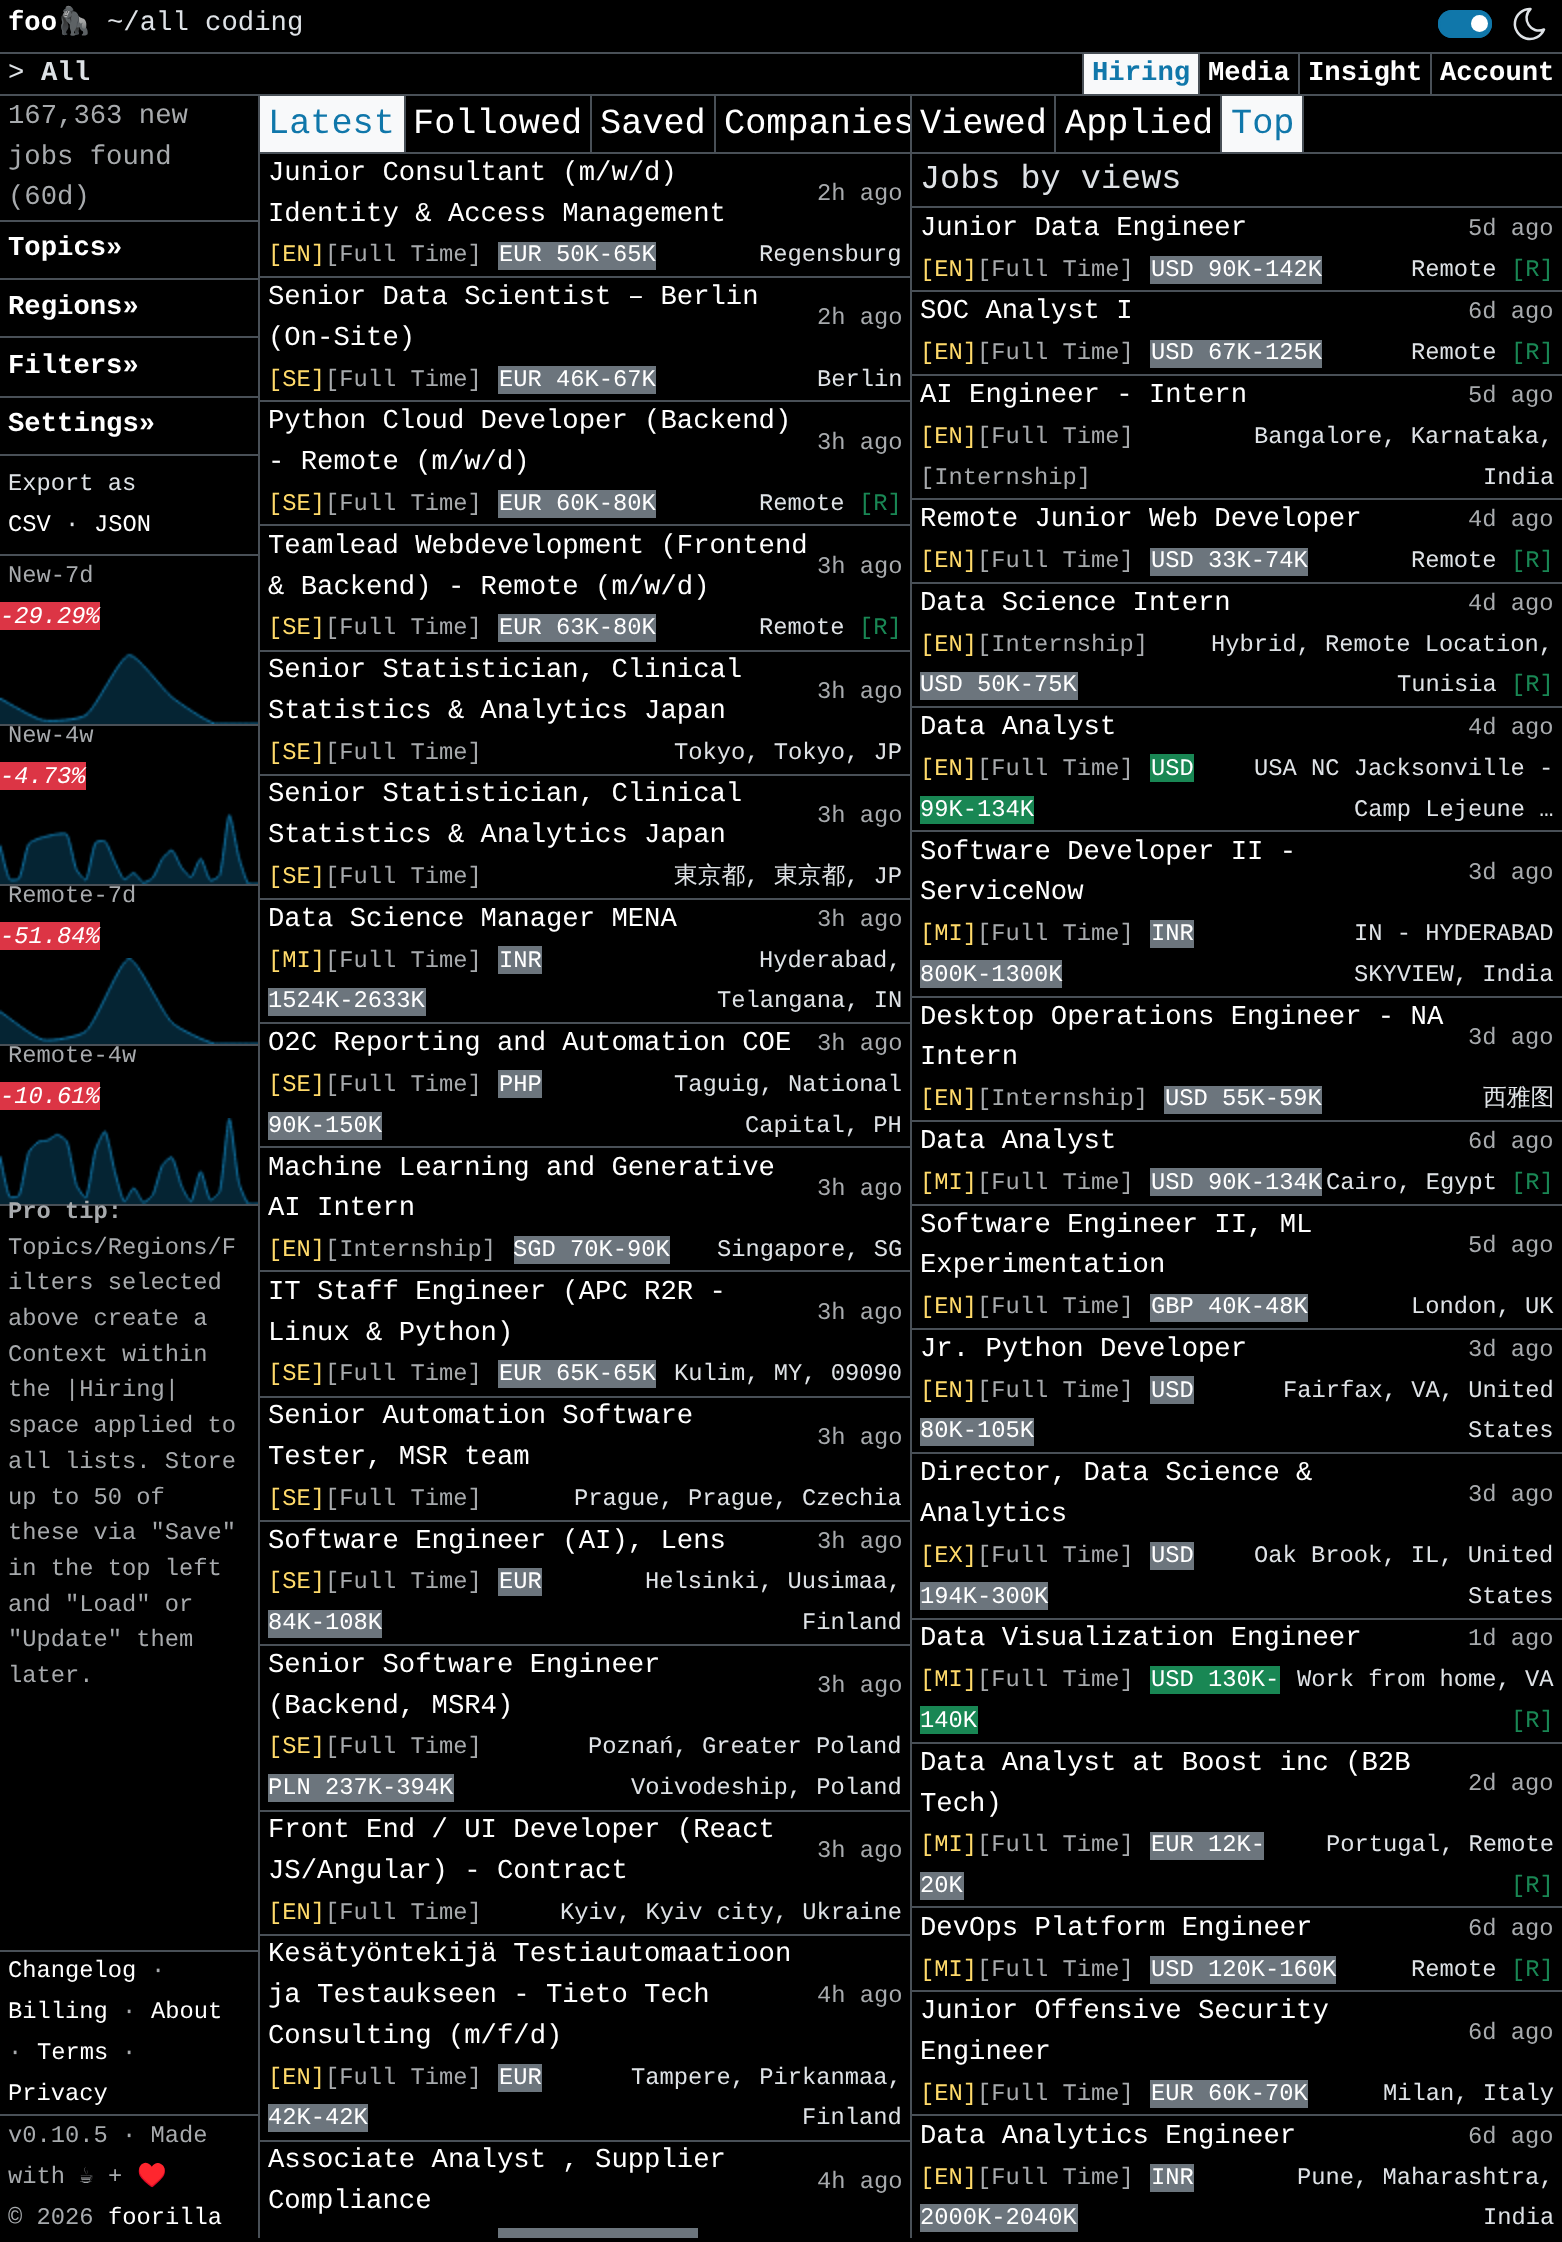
<!DOCTYPE html>
<meta charset="utf-8">
<style>body { margin: 0 } canvas { display: block }</style>
<canvas id="canvas" width="1562" height="2242"></canvas>
<img id="img1" src="img_01.png" hidden>
<img id="img2" src="img_02.png" hidden>
<img id="img3" src="img_03.png" hidden>
<img id="img4" src="img_04.png" hidden>
<script>
window.onload = function () {
	const canvas = document.getElementById("canvas");
	const ctx = canvas.getContext("2d");
	ctx.miterLimit = 4;
	ctx.fontKerning = "normal";
	function txt(s, x, y) {
		ctx.fillText(s, x, y);
	}
	function fill(x, y, w, h) {
		ctx.fillRect(x, y, w, h);
	}
	function round(x, y, w, h, r) {
		ctx.beginPath();
		ctx.roundRect(x, y, w, h, r);
		ctx.fill();
	}
	function img(id, x, y, w, h) {
		ctx.drawImage(document.getElementById(id), x, y, w, h);
	}

	ctx.fillStyle = "#000000";
	fill(0, 0, 1562, 2242);
	ctx.fillStyle = "#495057";
	fill(0, 52, 1562, 2);
	ctx.fillStyle = "#1077AA";
	round(1438, 10, 54, 28, 14);
	ctx.fillStyle = "#FFFFFF";
	ctx.beginPath();
	ctx.arc(1479.5, 23.5, 8.5, 0, Math.PI * 2);
	ctx.fill();
	ctx.beginPath();
	ctx.roundRect(1439, 11, 52, 26, 13);
	ctx.strokeStyle = "#1077AA";
	ctx.lineWidth = 2;
	ctx.stroke();
	ctx.beginPath();
	ctx.moveTo(1530, 9);
	ctx.lineTo(1530.5, 9);
	ctx.bezierCurveTo(1520.5, 18.5, 1531, 35, 1544, 29.5);
	ctx.bezierCurveTo(1541, 36.5, 1533.5, 40.5, 1526, 38.5);
	ctx.bezierCurveTo(1519, 36.5, 1514, 29.5, 1515, 22);
	ctx.bezierCurveTo(1516, 14.5, 1522.5, 9, 1530, 9);
	ctx.closePath();
	ctx.strokeStyle = "#DEE2E6";
	ctx.lineWidth = 2.5;
	ctx.lineCap = "round";
	ctx.lineJoin = "round";
	ctx.stroke();
	ctx.fillStyle = "#495057";
	fill(0, 94, 1562, 2);
	ctx.fillStyle = "#F8F9FA";
	fill(1084, 54, 114, 40);
	ctx.fillStyle = "#495057";
	fill(1082, 54, 2, 40);
	fill(1198, 54, 2, 40);
	fill(1298, 54, 2, 40);
	fill(1430, 54, 2, 40);
	fill(258, 96, 2, 2142);
	fill(0, 220, 258, 2);
	fill(0, 278, 258, 2);
	fill(0, 336, 258, 2);
	fill(0, 396, 258, 2);
	fill(0, 454, 258, 2);
	fill(0, 554, 258, 2);
	ctx.fillStyle = "#DC3545";
	fill(0, 602, 100, 28);
	ctx.fillStyle = "#495057";
	fill(0, 724, 258, 2);
	img("img1", 0, 653, 258, 71);
	ctx.fillStyle = "#DC3545";
	fill(0, 762, 86, 28);
	ctx.fillStyle = "#495057";
	fill(0, 884, 258, 2);
	img("img2", 0, 813, 258, 71);
	ctx.fillStyle = "#DC3545";
	fill(0, 922, 100, 28);
	ctx.fillStyle = "#495057";
	fill(0, 1044, 258, 2);
	img("img3", 0, 958, 258, 86);
	ctx.fillStyle = "#DC3545";
	fill(0, 1082, 100, 28);
	ctx.fillStyle = "#495057";
	fill(0, 1204, 258, 2);
	img("img4", 0, 1118, 258, 86);
	fill(0, 1950, 258, 2);
	fill(0, 2114, 258, 2);
	fill(910, 96, 2, 2142);
	fill(260, 152, 650, 2);
	ctx.fillStyle = "#F8F9FA";
	fill(260, 96, 144, 56);
	ctx.fillStyle = "#495057";
	fill(404, 96, 2, 56);
	fill(590, 96, 2, 56);
	fill(714, 96, 2, 56);
	fill(260, 276, 650, 2);
	ctx.fillStyle = "#6C757D";
	fill(498, 242, 158, 28);
	ctx.fillStyle = "#495057";
	fill(260, 400, 650, 2);
	ctx.fillStyle = "#6C757D";
	fill(498, 366, 158, 28);
	ctx.fillStyle = "#495057";
	fill(260, 524, 650, 2);
	ctx.fillStyle = "#6C757D";
	fill(498, 490, 158, 28);
	ctx.fillStyle = "#495057";
	fill(260, 650, 650, 2);
	ctx.fillStyle = "#6C757D";
	fill(498, 614, 158, 28);
	ctx.fillStyle = "#495057";
	fill(260, 774, 650, 2);
	fill(260, 898, 650, 2);
	fill(260, 1022, 650, 2);
	ctx.fillStyle = "#6C757D";
	fill(498, 946, 44, 28);
	fill(268, 988, 158, 28);
	ctx.fillStyle = "#495057";
	fill(260, 1146, 650, 2);
	ctx.fillStyle = "#6C757D";
	fill(498, 1070, 44, 28);
	fill(268, 1112, 114, 28);
	ctx.fillStyle = "#495057";
	fill(260, 1270, 650, 2);
	ctx.fillStyle = "#6C757D";
	fill(514, 1236, 156, 28);
	ctx.fillStyle = "#495057";
	fill(260, 1396, 650, 2);
	ctx.fillStyle = "#6C757D";
	fill(498, 1360, 158, 28);
	ctx.fillStyle = "#495057";
	fill(260, 1520, 650, 2);
	fill(260, 1644, 650, 2);
	ctx.fillStyle = "#6C757D";
	fill(498, 1568, 44, 28);
	fill(268, 1610, 114, 28);
	ctx.fillStyle = "#495057";
	fill(260, 1810, 650, 2);
	ctx.fillStyle = "#6C757D";
	fill(268, 1774, 186, 28);
	ctx.fillStyle = "#495057";
	fill(260, 1934, 650, 2);
	fill(260, 2140, 650, 2);
	ctx.fillStyle = "#6C757D";
	fill(498, 2064, 44, 28);
	fill(268, 2104, 100, 28);
	fill(498, 2228, 200, 10);
	ctx.fillStyle = "#495057";
	fill(912, 152, 650, 2);
	fill(1054, 96, 2, 56);
	fill(1220, 96, 2, 56);
	ctx.fillStyle = "#F8F9FA";
	fill(1222, 96, 80, 56);
	ctx.fillStyle = "#495057";
	fill(1302, 96, 2, 56);
	fill(912, 206, 650, 2);
	fill(912, 290, 650, 2);
	ctx.fillStyle = "#6C757D";
	fill(1150, 256, 172, 28);
	ctx.fillStyle = "#495057";
	fill(912, 374, 650, 2);
	ctx.fillStyle = "#6C757D";
	fill(1150, 340, 172, 28);
	ctx.fillStyle = "#495057";
	fill(912, 498, 650, 2);
	fill(912, 582, 650, 2);
	ctx.fillStyle = "#6C757D";
	fill(1150, 548, 158, 28);
	ctx.fillStyle = "#495057";
	fill(912, 706, 650, 2);
	ctx.fillStyle = "#6C757D";
	fill(920, 672, 158, 28);
	ctx.fillStyle = "#495057";
	fill(912, 830, 650, 2);
	ctx.fillStyle = "#198754";
	fill(1150, 754, 44, 28);
	fill(920, 796, 114, 28);
	ctx.fillStyle = "#495057";
	fill(912, 996, 650, 2);
	ctx.fillStyle = "#6C757D";
	fill(1150, 920, 44, 28);
	fill(920, 960, 142, 28);
	ctx.fillStyle = "#495057";
	fill(912, 1120, 650, 2);
	ctx.fillStyle = "#6C757D";
	fill(1164, 1086, 158, 28);
	ctx.fillStyle = "#495057";
	fill(912, 1204, 650, 2);
	ctx.fillStyle = "#6C757D";
	fill(1150, 1168, 172, 28);
	ctx.fillStyle = "#495057";
	fill(912, 1328, 650, 2);
	ctx.fillStyle = "#6C757D";
	fill(1150, 1294, 158, 28);
	ctx.fillStyle = "#495057";
	fill(912, 1452, 650, 2);
	ctx.fillStyle = "#6C757D";
	fill(1150, 1376, 44, 28);
	fill(920, 1418, 114, 28);
	ctx.fillStyle = "#495057";
	fill(912, 1618, 650, 2);
	ctx.fillStyle = "#6C757D";
	fill(1150, 1542, 44, 28);
	fill(920, 1582, 128, 28);
	ctx.fillStyle = "#495057";
	fill(912, 1742, 650, 2);
	ctx.fillStyle = "#198754";
	fill(1150, 1666, 130, 28);
	fill(920, 1706, 58, 28);
	ctx.fillStyle = "#495057";
	fill(912, 1906, 650, 2);
	ctx.fillStyle = "#6C757D";
	fill(1150, 1832, 114, 28);
	fill(920, 1872, 44, 28);
	ctx.fillStyle = "#495057";
	fill(912, 1990, 650, 2);
	ctx.fillStyle = "#6C757D";
	fill(1150, 1956, 186, 28);
	ctx.fillStyle = "#495057";
	fill(912, 2114, 650, 2);
	ctx.fillStyle = "#6C757D";
	fill(1150, 2080, 158, 28);
	fill(1150, 2164, 44, 28);
	fill(920, 2204, 158, 28);
	ctx.font = "bold 27.25px Liberation Mono";
	ctx.fillStyle = "#FFFFFF";
	txt("foo", 8, 30);
	ctx.font = "bold 27.25px Noto Color Emoji";
	txt("🦍", 57, 30);
	ctx.font = "27.25px Liberation Mono";
	ctx.fillStyle = "#DEE2E6";
	txt("~/all coding", 107, 30);
	txt(">", 8, 80);
	ctx.font = "bold 27.25px Liberation Mono";
	txt("All", 41, 80);
	ctx.fillStyle = "#1077AA";
	txt("Hiring", 1092, 80);
	ctx.fillStyle = "#FFFFFF";
	txt("Media", 1208, 80);
	txt("Insight", 1308, 80);
	txt("Account", 1440, 80);
	ctx.font = "27.25px Liberation Mono";
	ctx.fillStyle = "#A7AAAD";
	txt("167,363 new", 8, 123);
	txt("jobs found", 8, 164);
	txt("(60d)", 8, 204);
	ctx.font = "bold 27.25px Liberation Mono";
	ctx.fillStyle = "#FFFFFF";
	txt("Topics»", 8, 255);
	txt("Regions»", 8, 314);
	txt("Filters»", 8, 373);
	txt("Settings»", 8, 431);
	ctx.font = "23.75px Liberation Mono";
	ctx.fillStyle = "#DEE2E6";
	txt("Export as", 8, 490);
	ctx.fillStyle = "#FFFFFF";
	txt("CSV", 8, 531);
	ctx.fillStyle = "#DEE2E6";
	txt("·", 65, 531);
	ctx.fillStyle = "#FFFFFF";
	txt("JSON", 94, 531);
	ctx.fillStyle = "#A7AAAD";
	txt("New-7d", 8, 582);
	ctx.font = "italic 23.75px Liberation Mono";
	ctx.fillStyle = "#FFFFFF";
	txt("-29.29%", 0, 623);
	ctx.font = "23.75px Liberation Mono";
	ctx.fillStyle = "#A7AAAD";
	txt("New-4w", 8, 742);
	ctx.font = "italic 23.75px Liberation Mono";
	ctx.fillStyle = "#FFFFFF";
	txt("-4.73%", 0, 783);
	ctx.font = "23.75px Liberation Mono";
	ctx.fillStyle = "#A7AAAD";
	txt("Remote-7d", 8, 902);
	ctx.font = "italic 23.75px Liberation Mono";
	ctx.fillStyle = "#FFFFFF";
	txt("-51.84%", 0, 943);
	ctx.font = "23.75px Liberation Mono";
	ctx.fillStyle = "#A7AAAD";
	txt("Remote-4w", 8, 1062);
	ctx.font = "italic 23.75px Liberation Mono";
	ctx.fillStyle = "#FFFFFF";
	txt("-10.61%", 0, 1103);
	ctx.font = "bold 23.75px Liberation Mono";
	ctx.fillStyle = "#A7AAAD";
	txt("Pro tip:", 8, 1218);
	ctx.font = "23.75px Liberation Mono";
	txt("Topics/Regions/F", 8, 1254);
	txt("ilters selected", 8, 1289);
	txt("above create a", 8, 1325);
	txt("Context within", 8, 1361);
	txt("the |Hiring|", 8, 1396);
	txt("space applied to", 8, 1432);
	txt("all lists. Store", 8, 1468);
	txt("up to 50 of", 8, 1504);
	txt("these via \"Save\"", 8, 1539);
	txt("in the top left", 8, 1575);
	txt("and \"Load\" or", 8, 1611);
	txt("\"Update\" them", 8, 1646);
	txt("later.", 8, 1682);
	ctx.fillStyle = "#FFFFFF";
	txt("Changelog", 8, 1977);
	ctx.fillStyle = "#A7AAAD";
	txt("·", 151, 1977);
	ctx.fillStyle = "#FFFFFF";
	txt("Billing", 8, 2018);
	ctx.fillStyle = "#A7AAAD";
	txt("·", 122, 2018);
	ctx.fillStyle = "#FFFFFF";
	txt("About", 151, 2018);
	ctx.fillStyle = "#A7AAAD";
	txt("·", 8, 2059);
	ctx.fillStyle = "#FFFFFF";
	txt("Terms", 37, 2059);
	ctx.fillStyle = "#A7AAAD";
	txt("·", 122, 2059);
	ctx.fillStyle = "#FFFFFF";
	txt("Privacy", 8, 2100);
	ctx.fillStyle = "#A7AAAD";
	txt("v0.10.5 · Made", 8, 2142);
	txt("with", 8, 2183);
	ctx.font = "23.75px DejaVu Sans Mono";
	txt("☕", 79, 2183);
	ctx.font = "23.75px Liberation Mono";
	txt("+", 108, 2183);
	ctx.font = "23.75px Noto Color Emoji";
	txt("♥️", 137, 2183);
	ctx.font = "23.75px Liberation Mono";
	txt("© 2026", 8, 2224);
	ctx.fillStyle = "#FFFFFF";
	txt("foorilla", 108, 2224);
	ctx.font = "35.25px Liberation Mono";
	ctx.fillStyle = "#1077AA";
	txt("Latest", 268, 133);
	ctx.fillStyle = "#FFFFFF";
	txt("Followed", 413, 133);
	txt("Saved", 600, 133);
	ctx.save();
	ctx.beginPath();
	ctx.rect(260, 96, 650, 56);
	ctx.clip();
	txt("Companies", 724, 133);
	ctx.restore();
	ctx.font = "27.25px Liberation Mono";
	txt("Junior Consultant (m/w/d)", 268, 180);
	txt("Identity & Access Management", 268, 221);
	ctx.font = "23.75px Liberation Mono";
	ctx.fillStyle = "#A7AAAD";
	txt("2h ago", 817, 200);
	ctx.fillStyle = "#FFDA6A";
	txt("[EN]", 268, 261);
	ctx.fillStyle = "#A7AAAD";
	txt("[Full Time]", 325, 261);
	ctx.fillStyle = "#FFFFFF";
	txt("EUR 50K-65K", 499, 261);
	ctx.fillStyle = "#DEE2E6";
	txt("Regensburg", 759, 261);
	ctx.font = "27.25px Liberation Mono";
	ctx.fillStyle = "#FFFFFF";
	txt("Senior Data Scientist – Berlin", 268, 304);
	txt("(On-Site)", 268, 345);
	ctx.font = "23.75px Liberation Mono";
	ctx.fillStyle = "#A7AAAD";
	txt("2h ago", 817, 324);
	ctx.fillStyle = "#FFDA6A";
	txt("[SE]", 268, 386);
	ctx.fillStyle = "#A7AAAD";
	txt("[Full Time]", 325, 386);
	ctx.fillStyle = "#FFFFFF";
	txt("EUR 46K-67K", 499, 386);
	ctx.fillStyle = "#DEE2E6";
	txt("Berlin", 817, 386);
	ctx.font = "27.25px Liberation Mono";
	ctx.fillStyle = "#FFFFFF";
	txt("Python Cloud Developer (Backend)", 268, 428);
	txt("- Remote (m/w/d)", 268, 469);
	ctx.font = "23.75px Liberation Mono";
	ctx.fillStyle = "#A7AAAD";
	txt("3h ago", 817, 449);
	ctx.fillStyle = "#FFDA6A";
	txt("[SE]", 268, 510);
	ctx.fillStyle = "#A7AAAD";
	txt("[Full Time]", 325, 510);
	ctx.fillStyle = "#FFFFFF";
	txt("EUR 60K-80K", 499, 510);
	ctx.fillStyle = "#DEE2E6";
	txt("Remote", 759, 510);
	ctx.fillStyle = "#198754";
	txt("[R]", 859, 510);
	ctx.font = "27.25px Liberation Mono";
	ctx.fillStyle = "#FFFFFF";
	txt("Teamlead Webdevelopment (Frontend", 268, 553);
	txt("& Backend) - Remote (m/w/d)", 268, 594);
	ctx.font = "23.75px Liberation Mono";
	ctx.fillStyle = "#A7AAAD";
	txt("3h ago", 817, 573);
	ctx.fillStyle = "#FFDA6A";
	txt("[SE]", 268, 634);
	ctx.fillStyle = "#A7AAAD";
	txt("[Full Time]", 325, 634);
	ctx.fillStyle = "#FFFFFF";
	txt("EUR 63K-80K", 499, 634);
	ctx.fillStyle = "#DEE2E6";
	txt("Remote", 759, 634);
	ctx.fillStyle = "#198754";
	txt("[R]", 859, 634);
	ctx.font = "27.25px Liberation Mono";
	ctx.fillStyle = "#FFFFFF";
	txt("Senior Statistician, Clinical", 268, 677);
	txt("Statistics & Analytics Japan", 268, 718);
	ctx.font = "23.75px Liberation Mono";
	ctx.fillStyle = "#A7AAAD";
	txt("3h ago", 817, 698);
	ctx.fillStyle = "#FFDA6A";
	txt("[SE]", 268, 759);
	ctx.fillStyle = "#A7AAAD";
	txt("[Full Time]", 325, 759);
	ctx.fillStyle = "#DEE2E6";
	txt("Tokyo, Tokyo, JP", 674, 759);
	ctx.font = "27.25px Liberation Mono";
	ctx.fillStyle = "#FFFFFF";
	txt("Senior Statistician, Clinical", 268, 801);
	txt("Statistics & Analytics Japan", 268, 842);
	ctx.font = "23.75px Liberation Mono";
	ctx.fillStyle = "#A7AAAD";
	txt("3h ago", 817, 822);
	ctx.fillStyle = "#FFDA6A";
	txt("[SE]", 268, 883);
	ctx.fillStyle = "#A7AAAD";
	txt("[Full Time]", 325, 883);
	ctx.font = "500 23.75px WenQuanYi Zen Hei";
	ctx.fillStyle = "#DEE2E6";
	txt("東京都", 674, 883);
	ctx.font = "23.75px Liberation Mono";
	txt(",", 745, 883);
	ctx.font = "500 23.75px WenQuanYi Zen Hei";
	txt("東京都", 774, 883);
	ctx.font = "23.75px Liberation Mono";
	txt(", JP", 845, 883);
	ctx.font = "27.25px Liberation Mono";
	ctx.fillStyle = "#FFFFFF";
	txt("Data Science Manager MENA", 268, 926);
	ctx.font = "23.75px Liberation Mono";
	ctx.fillStyle = "#A7AAAD";
	txt("3h ago", 817, 926);
	ctx.fillStyle = "#FFDA6A";
	txt("[MI]", 268, 967);
	ctx.fillStyle = "#A7AAAD";
	txt("[Full Time]", 325, 967);
	ctx.fillStyle = "#FFFFFF";
	txt("INR", 499, 967);
	txt("1524K-2633K", 268, 1007);
	ctx.fillStyle = "#DEE2E6";
	txt("Hyderabad,", 759, 967);
	txt("Telangana, IN", 717, 1007);
	ctx.font = "27.25px Liberation Mono";
	ctx.fillStyle = "#FFFFFF";
	txt("O2C Reporting and Automation COE", 268, 1050);
	ctx.font = "23.75px Liberation Mono";
	ctx.fillStyle = "#A7AAAD";
	txt("3h ago", 817, 1050);
	ctx.fillStyle = "#FFDA6A";
	txt("[SE]", 268, 1091);
	ctx.fillStyle = "#A7AAAD";
	txt("[Full Time]", 325, 1091);
	ctx.fillStyle = "#FFFFFF";
	txt("PHP", 499, 1091);
	txt("90K-150K", 268, 1132);
	ctx.fillStyle = "#DEE2E6";
	txt("Taguig, National", 674, 1091);
	txt("Capital, PH", 745, 1132);
	ctx.font = "27.25px Liberation Mono";
	ctx.fillStyle = "#FFFFFF";
	txt("Machine Learning and Generative", 268, 1175);
	txt("AI Intern", 268, 1215);
	ctx.font = "23.75px Liberation Mono";
	ctx.fillStyle = "#A7AAAD";
	txt("3h ago", 817, 1195);
	ctx.fillStyle = "#FFDA6A";
	txt("[EN]", 268, 1256);
	ctx.fillStyle = "#A7AAAD";
	txt("[Internship]", 325, 1256);
	ctx.fillStyle = "#FFFFFF";
	txt("SGD 70K-90K", 513, 1256);
	ctx.fillStyle = "#DEE2E6";
	txt("Singapore, SG", 717, 1256);
	ctx.font = "27.25px Liberation Mono";
	ctx.fillStyle = "#FFFFFF";
	txt("IT Staff Engineer (APC R2R -", 268, 1299);
	txt("Linux & Python)", 268, 1340);
	ctx.font = "23.75px Liberation Mono";
	ctx.fillStyle = "#A7AAAD";
	txt("3h ago", 817, 1319);
	ctx.fillStyle = "#FFDA6A";
	txt("[SE]", 268, 1380);
	ctx.fillStyle = "#A7AAAD";
	txt("[Full Time]", 325, 1380);
	ctx.fillStyle = "#FFFFFF";
	txt("EUR 65K-65K", 499, 1380);
	ctx.fillStyle = "#DEE2E6";
	txt("Kulim, MY, 09090", 674, 1380);
	ctx.font = "27.25px Liberation Mono";
	ctx.fillStyle = "#FFFFFF";
	txt("Senior Automation Software", 268, 1423);
	txt("Tester, MSR team", 268, 1464);
	ctx.font = "23.75px Liberation Mono";
	ctx.fillStyle = "#A7AAAD";
	txt("3h ago", 817, 1444);
	ctx.fillStyle = "#FFDA6A";
	txt("[SE]", 268, 1505);
	ctx.fillStyle = "#A7AAAD";
	txt("[Full Time]", 325, 1505);
	ctx.fillStyle = "#DEE2E6";
	txt("Prague, Prague, Czechia", 574, 1505);
	ctx.font = "27.25px Liberation Mono";
	ctx.fillStyle = "#FFFFFF";
	txt("Software Engineer (AI), Lens", 268, 1548);
	ctx.font = "23.75px Liberation Mono";
	ctx.fillStyle = "#A7AAAD";
	txt("3h ago", 817, 1548);
	ctx.fillStyle = "#FFDA6A";
	txt("[SE]", 268, 1588);
	ctx.fillStyle = "#A7AAAD";
	txt("[Full Time]", 325, 1588);
	ctx.fillStyle = "#FFFFFF";
	txt("EUR", 499, 1588);
	txt("84K-108K", 268, 1629);
	ctx.fillStyle = "#DEE2E6";
	txt("Helsinki, Uusimaa,", 645, 1588);
	txt("Finland", 802, 1629);
	ctx.font = "27.25px Liberation Mono";
	ctx.fillStyle = "#FFFFFF";
	txt("Senior Software Engineer", 268, 1672);
	txt("(Backend, MSR4)", 268, 1713);
	ctx.font = "23.75px Liberation Mono";
	ctx.fillStyle = "#A7AAAD";
	txt("3h ago", 817, 1692);
	ctx.fillStyle = "#FFDA6A";
	txt("[SE]", 268, 1753);
	ctx.fillStyle = "#A7AAAD";
	txt("[Full Time]", 325, 1753);
	ctx.fillStyle = "#FFFFFF";
	txt("PLN 237K-394K", 268, 1794);
	ctx.fillStyle = "#DEE2E6";
	txt("Poznań, Greater Poland", 588, 1753);
	txt("Voivodeship, Poland", 631, 1794);
	ctx.font = "27.25px Liberation Mono";
	ctx.fillStyle = "#FFFFFF";
	txt("Front End / UI Developer (React", 268, 1837);
	txt("JS/Angular) - Contract", 268, 1878);
	ctx.font = "23.75px Liberation Mono";
	ctx.fillStyle = "#A7AAAD";
	txt("3h ago", 817, 1857);
	ctx.fillStyle = "#FFDA6A";
	txt("[EN]", 268, 1919);
	ctx.fillStyle = "#A7AAAD";
	txt("[Full Time]", 325, 1919);
	ctx.fillStyle = "#DEE2E6";
	txt("Kyiv, Kyiv city, Ukraine", 560, 1919);
	ctx.font = "27.25px Liberation Mono";
	ctx.fillStyle = "#FFFFFF";
	txt("Kesätyöntekijä Testiautomaatioon", 268, 1961);
	txt("ja Testaukseen - Tieto Tech", 268, 2002);
	txt("Consulting (m/f/d)", 268, 2043);
	ctx.font = "23.75px Liberation Mono";
	ctx.fillStyle = "#A7AAAD";
	txt("4h ago", 817, 2002);
	ctx.fillStyle = "#FFDA6A";
	txt("[EN]", 268, 2084);
	ctx.fillStyle = "#A7AAAD";
	txt("[Full Time]", 325, 2084);
	ctx.fillStyle = "#FFFFFF";
	txt("EUR", 499, 2084);
	txt("42K-42K", 268, 2124);
	ctx.fillStyle = "#DEE2E6";
	txt("Tampere, Pirkanmaa,", 631, 2084);
	txt("Finland", 802, 2124);
	ctx.font = "27.25px Liberation Mono";
	ctx.fillStyle = "#FFFFFF";
	txt("Associate Analyst , Supplier", 268, 2167);
	txt("Compliance", 268, 2208);
	ctx.font = "23.75px Liberation Mono";
	ctx.fillStyle = "#A7AAAD";
	txt("4h ago", 817, 2188);
	ctx.font = "35.25px Liberation Mono";
	ctx.fillStyle = "#FFFFFF";
	txt("Viewed", 920, 133);
	txt("Applied", 1065, 133);
	ctx.fillStyle = "#1077AA";
	txt("Top", 1231, 133);
	ctx.font = "33.5px Liberation Mono";
	ctx.fillStyle = "#DEE2E6";
	txt("Jobs by views", 920, 188);
	ctx.font = "27.25px Liberation Mono";
	ctx.fillStyle = "#FFFFFF";
	txt("Junior Data Engineer", 920, 235);
	ctx.font = "23.75px Liberation Mono";
	ctx.fillStyle = "#A7AAAD";
	txt("5d ago", 1468, 235);
	ctx.fillStyle = "#FFDA6A";
	txt("[EN]", 920, 276);
	ctx.fillStyle = "#A7AAAD";
	txt("[Full Time]", 977, 276);
	ctx.fillStyle = "#FFFFFF";
	txt("USD 90K-142K", 1151, 276);
	ctx.fillStyle = "#DEE2E6";
	txt("Remote", 1411, 276);
	ctx.fillStyle = "#198754";
	txt("[R]", 1511, 276);
	ctx.font = "27.25px Liberation Mono";
	ctx.fillStyle = "#FFFFFF";
	txt("SOC Analyst I", 920, 318);
	ctx.font = "23.75px Liberation Mono";
	ctx.fillStyle = "#A7AAAD";
	txt("6d ago", 1468, 318);
	ctx.fillStyle = "#FFDA6A";
	txt("[EN]", 920, 359);
	ctx.fillStyle = "#A7AAAD";
	txt("[Full Time]", 977, 359);
	ctx.fillStyle = "#FFFFFF";
	txt("USD 67K-125K", 1151, 359);
	ctx.fillStyle = "#DEE2E6";
	txt("Remote", 1411, 359);
	ctx.fillStyle = "#198754";
	txt("[R]", 1511, 359);
	ctx.font = "27.25px Liberation Mono";
	ctx.fillStyle = "#FFFFFF";
	txt("AI Engineer - Intern", 920, 402);
	ctx.font = "23.75px Liberation Mono";
	ctx.fillStyle = "#A7AAAD";
	txt("5d ago", 1468, 402);
	ctx.fillStyle = "#FFDA6A";
	txt("[EN]", 920, 443);
	ctx.fillStyle = "#A7AAAD";
	txt("[Full Time]", 977, 443);
	txt("[Internship]", 920, 484);
	ctx.fillStyle = "#DEE2E6";
	txt("Bangalore, Karnataka,", 1254, 443);
	txt("India", 1483, 484);
	ctx.font = "27.25px Liberation Mono";
	ctx.fillStyle = "#FFFFFF";
	txt("Remote Junior Web Developer", 920, 526);
	ctx.font = "23.75px Liberation Mono";
	ctx.fillStyle = "#A7AAAD";
	txt("4d ago", 1468, 526);
	ctx.fillStyle = "#FFDA6A";
	txt("[EN]", 920, 567);
	ctx.fillStyle = "#A7AAAD";
	txt("[Full Time]", 977, 567);
	ctx.fillStyle = "#FFFFFF";
	txt("USD 33K-74K", 1151, 567);
	ctx.fillStyle = "#DEE2E6";
	txt("Remote", 1411, 567);
	ctx.fillStyle = "#198754";
	txt("[R]", 1511, 567);
	ctx.font = "27.25px Liberation Mono";
	ctx.fillStyle = "#FFFFFF";
	txt("Data Science Intern", 920, 610);
	ctx.font = "23.75px Liberation Mono";
	ctx.fillStyle = "#A7AAAD";
	txt("4d ago", 1468, 610);
	ctx.fillStyle = "#FFDA6A";
	txt("[EN]", 920, 651);
	ctx.fillStyle = "#A7AAAD";
	txt("[Internship]", 977, 651);
	ctx.fillStyle = "#FFFFFF";
	txt("USD 50K-75K", 920, 691);
	ctx.fillStyle = "#DEE2E6";
	txt("Hybrid, Remote Location,", 1211, 651);
	txt("Tunisia", 1397, 691);
	ctx.fillStyle = "#198754";
	txt("[R]", 1511, 691);
	ctx.font = "27.25px Liberation Mono";
	ctx.fillStyle = "#FFFFFF";
	txt("Data Analyst", 920, 734);
	ctx.font = "23.75px Liberation Mono";
	ctx.fillStyle = "#A7AAAD";
	txt("4d ago", 1468, 734);
	ctx.fillStyle = "#FFDA6A";
	txt("[EN]", 920, 775);
	ctx.fillStyle = "#A7AAAD";
	txt("[Full Time]", 977, 775);
	ctx.fillStyle = "#FFFFFF";
	txt("USD", 1151, 775);
	txt("99K-134K", 920, 816);
	ctx.fillStyle = "#DEE2E6";
	txt("USA NC Jacksonville -", 1254, 775);
	txt("Camp Lejeune …", 1354, 816);
	ctx.font = "27.25px Liberation Mono";
	ctx.fillStyle = "#FFFFFF";
	txt("Software Developer II -", 920, 859);
	txt("ServiceNow", 920, 899);
	ctx.font = "23.75px Liberation Mono";
	ctx.fillStyle = "#A7AAAD";
	txt("3d ago", 1468, 879);
	ctx.fillStyle = "#FFDA6A";
	txt("[MI]", 920, 940);
	ctx.fillStyle = "#A7AAAD";
	txt("[Full Time]", 977, 940);
	ctx.fillStyle = "#FFFFFF";
	txt("INR", 1151, 940);
	txt("800K-1300K", 920, 981);
	ctx.fillStyle = "#DEE2E6";
	txt("IN - HYDERABAD", 1354, 940);
	txt("SKYVIEW, India", 1354, 981);
	ctx.font = "27.25px Liberation Mono";
	ctx.fillStyle = "#FFFFFF";
	txt("Desktop Operations Engineer - NA", 920, 1024);
	txt("Intern", 920, 1064);
	ctx.font = "23.75px Liberation Mono";
	ctx.fillStyle = "#A7AAAD";
	txt("3d ago", 1468, 1044);
	ctx.fillStyle = "#FFDA6A";
	txt("[EN]", 920, 1105);
	ctx.fillStyle = "#A7AAAD";
	txt("[Internship]", 977, 1105);
	ctx.fillStyle = "#FFFFFF";
	txt("USD 55K-59K", 1165, 1105);
	ctx.font = "500 23.75px WenQuanYi Zen Hei";
	ctx.fillStyle = "#DEE2E6";
	txt("西雅图", 1483, 1105);
	ctx.font = "27.25px Liberation Mono";
	ctx.fillStyle = "#FFFFFF";
	txt("Data Analyst", 920, 1148);
	ctx.font = "23.75px Liberation Mono";
	ctx.fillStyle = "#A7AAAD";
	txt("6d ago", 1468, 1148);
	ctx.fillStyle = "#FFDA6A";
	txt("[MI]", 920, 1189);
	ctx.fillStyle = "#A7AAAD";
	txt("[Full Time]", 977, 1189);
	ctx.fillStyle = "#FFFFFF";
	txt("USD 90K-134K", 1151, 1189);
	ctx.fillStyle = "#DEE2E6";
	txt("Cairo, Egypt", 1326, 1189);
	ctx.fillStyle = "#198754";
	txt("[R]", 1511, 1189);
	ctx.font = "27.25px Liberation Mono";
	ctx.fillStyle = "#FFFFFF";
	txt("Software Engineer II, ML", 920, 1232);
	txt("Experimentation", 920, 1272);
	ctx.font = "23.75px Liberation Mono";
	ctx.fillStyle = "#A7AAAD";
	txt("5d ago", 1468, 1252);
	ctx.fillStyle = "#FFDA6A";
	txt("[EN]", 920, 1313);
	ctx.fillStyle = "#A7AAAD";
	txt("[Full Time]", 977, 1313);
	ctx.fillStyle = "#FFFFFF";
	txt("GBP 40K-48K", 1151, 1313);
	ctx.fillStyle = "#DEE2E6";
	txt("London, UK", 1411, 1313);
	ctx.font = "27.25px Liberation Mono";
	ctx.fillStyle = "#FFFFFF";
	txt("Jr. Python Developer", 920, 1356);
	ctx.font = "23.75px Liberation Mono";
	ctx.fillStyle = "#A7AAAD";
	txt("3d ago", 1468, 1356);
	ctx.fillStyle = "#FFDA6A";
	txt("[EN]", 920, 1397);
	ctx.fillStyle = "#A7AAAD";
	txt("[Full Time]", 977, 1397);
	ctx.fillStyle = "#FFFFFF";
	txt("USD", 1151, 1397);
	txt("80K-105K", 920, 1437);
	ctx.fillStyle = "#DEE2E6";
	txt("Fairfax, VA, United", 1283, 1397);
	txt("States", 1468, 1437);
	ctx.font = "27.25px Liberation Mono";
	ctx.fillStyle = "#FFFFFF";
	txt("Director, Data Science &", 920, 1480);
	txt("Analytics", 920, 1521);
	ctx.font = "23.75px Liberation Mono";
	ctx.fillStyle = "#A7AAAD";
	txt("3d ago", 1468, 1501);
	ctx.fillStyle = "#FFDA6A";
	txt("[EX]", 920, 1562);
	ctx.fillStyle = "#A7AAAD";
	txt("[Full Time]", 977, 1562);
	ctx.fillStyle = "#FFFFFF";
	txt("USD", 1151, 1562);
	txt("194K-300K", 920, 1603);
	ctx.fillStyle = "#DEE2E6";
	txt("Oak Brook, IL, United", 1254, 1562);
	txt("States", 1468, 1603);
	ctx.font = "27.25px Liberation Mono";
	ctx.fillStyle = "#FFFFFF";
	txt("Data Visualization Engineer", 920, 1645);
	ctx.font = "23.75px Liberation Mono";
	ctx.fillStyle = "#A7AAAD";
	txt("1d ago", 1468, 1645);
	ctx.fillStyle = "#FFDA6A";
	txt("[MI]", 920, 1686);
	ctx.fillStyle = "#A7AAAD";
	txt("[Full Time]", 977, 1686);
	ctx.fillStyle = "#FFFFFF";
	txt("USD 130K-", 1151, 1686);
	txt("140K", 920, 1727);
	ctx.fillStyle = "#DEE2E6";
	txt("Work from home, VA", 1297, 1686);
	ctx.fillStyle = "#198754";
	txt("[R]", 1511, 1727);
	ctx.font = "27.25px Liberation Mono";
	ctx.fillStyle = "#FFFFFF";
	txt("Data Analyst at Boost inc (B2B", 920, 1770);
	txt("Tech)", 920, 1811);
	ctx.font = "23.75px Liberation Mono";
	ctx.fillStyle = "#A7AAAD";
	txt("2d ago", 1468, 1790);
	ctx.fillStyle = "#FFDA6A";
	txt("[MI]", 920, 1851);
	ctx.fillStyle = "#A7AAAD";
	txt("[Full Time]", 977, 1851);
	ctx.fillStyle = "#FFFFFF";
	txt("EUR 12K-", 1151, 1851);
	txt("20K", 920, 1892);
	ctx.fillStyle = "#DEE2E6";
	txt("Portugal, Remote", 1326, 1851);
	ctx.fillStyle = "#198754";
	txt("[R]", 1511, 1892);
	ctx.font = "27.25px Liberation Mono";
	ctx.fillStyle = "#FFFFFF";
	txt("DevOps Platform Engineer", 920, 1935);
	ctx.font = "23.75px Liberation Mono";
	ctx.fillStyle = "#A7AAAD";
	txt("6d ago", 1468, 1935);
	ctx.fillStyle = "#FFDA6A";
	txt("[MI]", 920, 1976);
	ctx.fillStyle = "#A7AAAD";
	txt("[Full Time]", 977, 1976);
	ctx.fillStyle = "#FFFFFF";
	txt("USD 120K-160K", 1151, 1976);
	ctx.fillStyle = "#DEE2E6";
	txt("Remote", 1411, 1976);
	ctx.fillStyle = "#198754";
	txt("[R]", 1511, 1976);
	ctx.font = "27.25px Liberation Mono";
	ctx.fillStyle = "#FFFFFF";
	txt("Junior Offensive Security", 920, 2018);
	txt("Engineer", 920, 2059);
	ctx.font = "23.75px Liberation Mono";
	ctx.fillStyle = "#A7AAAD";
	txt("6d ago", 1468, 2039);
	ctx.fillStyle = "#FFDA6A";
	txt("[EN]", 920, 2100);
	ctx.fillStyle = "#A7AAAD";
	txt("[Full Time]", 977, 2100);
	ctx.fillStyle = "#FFFFFF";
	txt("EUR 60K-70K", 1151, 2100);
	ctx.fillStyle = "#DEE2E6";
	txt("Milan, Italy", 1383, 2100);
	ctx.font = "27.25px Liberation Mono";
	ctx.fillStyle = "#FFFFFF";
	txt("Data Analytics Engineer", 920, 2143);
	ctx.font = "23.75px Liberation Mono";
	ctx.fillStyle = "#A7AAAD";
	txt("6d ago", 1468, 2143);
	ctx.fillStyle = "#FFDA6A";
	txt("[EN]", 920, 2184);
	ctx.fillStyle = "#A7AAAD";
	txt("[Full Time]", 977, 2184);
	ctx.fillStyle = "#FFFFFF";
	txt("INR", 1151, 2184);
	txt("2000K-2040K", 920, 2224);
	ctx.fillStyle = "#DEE2E6";
	txt("Pune, Maharashtra,", 1297, 2184);
	txt("India", 1483, 2224);
};
</script>
